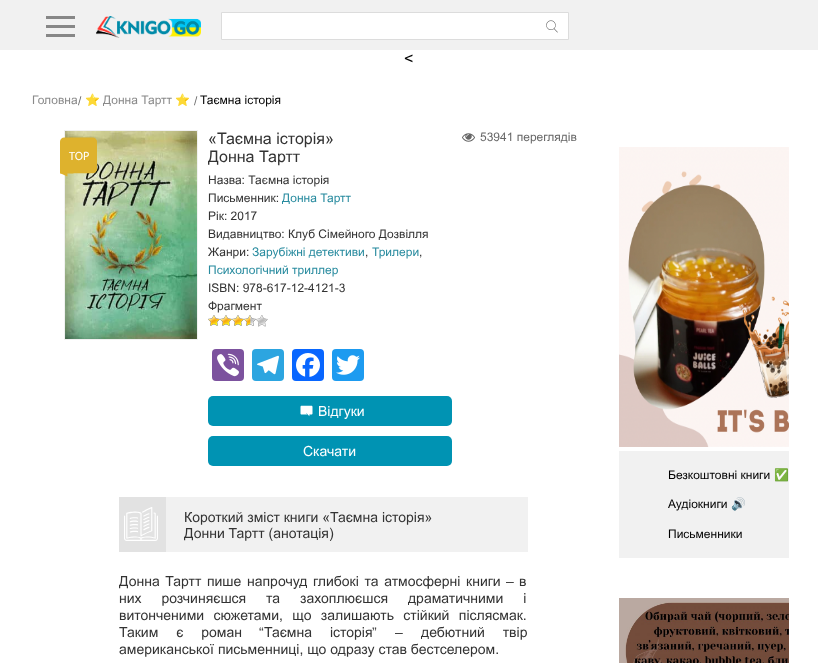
<!DOCTYPE html>
<meta charset="utf-8">
<style>body { margin: 0 } canvas { display: block }</style>
<canvas id="canvas" width="818" height="663"></canvas>
<img id="img1" src="img_01.png" hidden>
<img id="img2" src="img_02.png" hidden>
<img id="img3" src="img_03.png" hidden>
<img id="img4" src="img_04.png" hidden>
<img id="img5" src="img_05.png" hidden>
<img id="img6" src="img_06.png" hidden>
<img id="img7" src="img_07.png" hidden>
<img id="img8" src="img_08.png" hidden>
<img id="img9" src="img_09.png" hidden>
<img id="img10" src="img_10.png" hidden>
<img id="img11" src="img_11.png" hidden>
<img id="img12" src="img_12.png" hidden>
<img id="img13" src="img_13.png" hidden>
<img id="img14" src="img_14.png" hidden>
<img id="img15" src="img_15.png" hidden>
<img id="img16" src="img_16.png" hidden>
<script>
window.onload = function () {
	const canvas = document.getElementById("canvas");
	const ctx = canvas.getContext("2d");
	ctx.miterLimit = 4;
	ctx.fontKerning = "normal";
	function txt(s, x, y) {
		ctx.fillText(s, x, y);
	}
	function fill(x, y, w, h) {
		ctx.fillRect(x, y, w, h);
	}
	function round(x, y, w, h, r) {
		ctx.beginPath();
		ctx.roundRect(x, y, w, h, r);
		ctx.fill();
	}
	function img(id, x, y, w, h) {
		ctx.drawImage(document.getElementById(id), x, y, w, h);
	}

	ctx.fillStyle = "#FFFFFF";
	fill(0, 0, 818, 663);
	ctx.fillStyle = "#F1F1F1";
	fill(0, 0, 818, 50);
	ctx.fillStyle = "#878787";
	fill(46, 34, 29, 3);
	fill(46, 16, 29, 3);
	fill(46, 25, 29, 3);
	img("img1", 96, 16, 105, 22);
	ctx.fillStyle = "#FFFFFF";
	ctx.beginPath();
	ctx.rect(221.5, 12.5, 347, 27);
	ctx.fill();
	ctx.strokeStyle = "#DCDCDC";
	ctx.stroke();
	img("img2", 546, 20, 12, 13);
	img("img3", 208, 315, 12, 11);
	img("img3", 220, 315, 12, 11);
	img("img3", 232, 315, 12, 11);
	img("img4", 244, 315, 12, 11);
	img("img5", 256, 315, 12, 12);
	ctx.fillStyle = "#7C529E";
	round(212, 349, 32, 32, 4);
	img("img6", 217, 353, 22, 24);
	ctx.fillStyle = "#2CA5E0";
	round(252, 349, 32, 32, 4);
	img("img7", 257, 355, 22, 20);
	ctx.fillStyle = "#0866FF";
	round(292, 349, 32, 32, 4);
	img("img8", 296, 353, 24, 24);
	ctx.fillStyle = "#1D9BF0";
	round(332, 349, 32, 32, 4);
	img("img9", 336, 355, 24, 20);
	ctx.fillStyle = "#0093B3";
	round(208, 396, 244, 30, 5);
	img("img10", 300, 405, 13, 12);
	round(208, 436, 244, 30, 5);
	img("img11", 462, 133, 13, 9);
	ctx.strokeStyle = "#F1F1F1";
	ctx.strokeRect(64.5, 130.5, 133, 209);
	img("img12", 65, 131, 132, 208);
	img("img13", 60, 137, 37, 40);
	ctx.fillStyle = "#F1F1F1";
	fill(166, 497, 362, 55);
	ctx.fillStyle = "#E2E2E2";
	fill(119, 497, 47, 55);
	img("img14", 124, 507, 34, 34);
	img("img15", 619, 147, 170, 300);
	ctx.fillStyle = "#F1F1F1";
	fill(619, 451, 170, 107);
	img("img16", 619, 598, 170, 65);
	ctx.font = "16px Arial";
	ctx.fillStyle = "#000000";
	txt("<", 404, 64);
	ctx.font = "12px Arial";
	ctx.fillStyle = "#8A8A8A";
	txt("Головна", 32, 104);
	ctx.fillStyle = "#666666";
	txt("/", 78, 105);
	ctx.font = "12px Noto Color Emoji";
	ctx.fillStyle = "#8A8A8A";
	txt("⭐", 85, 104);
	ctx.font = "12px Arial";
	txt("Донна Тартт", 103, 104);
	ctx.font = "12px Noto Color Emoji";
	txt("⭐", 175, 104);
	ctx.font = "12px Arial";
	ctx.fillStyle = "#666666";
	txt("/", 194, 105);
	ctx.fillStyle = "#000000";
	txt("Таємна історія", 200, 104);
	ctx.font = "16px Arial";
	ctx.fillStyle = "#333333";
	txt("«Таємна історія»", 208, 144);
	txt("Донна Тартт", 208, 162);
	ctx.font = "12px Arial";
	txt("Назва: Таємна історія", 208, 184);
	txt("Письменник:", 208, 202);
	ctx.fillStyle = "#288B9F";
	txt("Донна Тартт", 282, 202);
	ctx.fillStyle = "#333333";
	txt("Рік: 2017", 208, 220);
	txt("Видавництво: Клуб Сімейного Дозвілля", 208, 238);
	txt("Жанри:", 208, 256);
	ctx.fillStyle = "#288B9F";
	txt("Зарубіжні детективи", 252, 256);
	ctx.fillStyle = "#333333";
	txt(",", 365, 256);
	ctx.fillStyle = "#288B9F";
	txt("Трилери", 372, 256);
	ctx.fillStyle = "#333333";
	txt(",", 419, 256);
	ctx.fillStyle = "#288B9F";
	txt("Психологічний триллер", 208, 274);
	ctx.fillStyle = "#333333";
	txt("ISBN: 978-617-12-4121-3", 208, 292);
	txt("Фрагмент", 208, 310);
	ctx.font = "14px Arial";
	ctx.fillStyle = "#FFFFFF";
	txt("Відгуки", 318, 416);
	txt("Скачати", 303, 456);
	ctx.font = "12px Arial";
	ctx.fillStyle = "#666666";
	txt("53941 переглядів", 480, 141);
	ctx.font = "12px Myriad";
	ctx.fillStyle = "#FFFFFF";
	txt("TOP", 69, 160);
	ctx.font = "14px Arial";
	ctx.fillStyle = "#333333";
	txt("Короткий зміст книги «Таємна історія»", 184, 522);
	txt("Донни Тартт (анотація)", 184, 538);
	ctx.wordSpacing = "1.75px";
	txt("Донна Тартт пише напрочуд глибокі та атмосферні книги", 119, 586);
	ctx.wordSpacing = "0px";
	ctx.font = "14px Liberation Sans";
	txt("–", 506, 586);
	ctx.font = "14px Arial";
	txt("в", 519, 586);
	ctx.wordSpacing = "16px";
	txt("них розчиняєшся та захоплюєшся драматичними і", 119, 603);
	ctx.wordSpacing = "5.5px";
	txt("витонченими сюжетами, що залишають стійкий післясмак.", 119, 620);
	ctx.wordSpacing = "14px";
	txt("Таким є роман", 119, 637);
	ctx.wordSpacing = "0px";
	ctx.font = "14px Liberation Sans";
	txt("“", 259, 637);
	ctx.wordSpacing = "14px";
	ctx.font = "14px Arial";
	txt("Таємна історія", 264, 637);
	ctx.wordSpacing = "0px";
	ctx.font = "14px Liberation Sans";
	txt("”", 372, 637);
	ctx.wordSpacing = "14px";
	ctx.font = "14px Arial";
	txt("дебютний твір", 421, 637);
	ctx.wordSpacing = "0px";
	ctx.font = "14px Liberation Sans";
	txt("–", 395, 637);
	ctx.font = "14px Arial";
	txt("американської письменниці, що одразу став бестселером.", 119, 654);
	ctx.font = "12px Arial";
	ctx.fillStyle = "#000000";
	txt("Безкоштовні книги", 668, 479);
	ctx.font = "12px Noto Color Emoji";
	txt("✅", 774, 479);
	ctx.font = "12px Arial";
	txt("Аудіокниги", 668, 508);
	ctx.font = "12px Noto Color Emoji";
	txt("🔊", 731, 508);
	ctx.font = "12px Arial";
	txt("Письменники", 668, 538);
};
</script>
